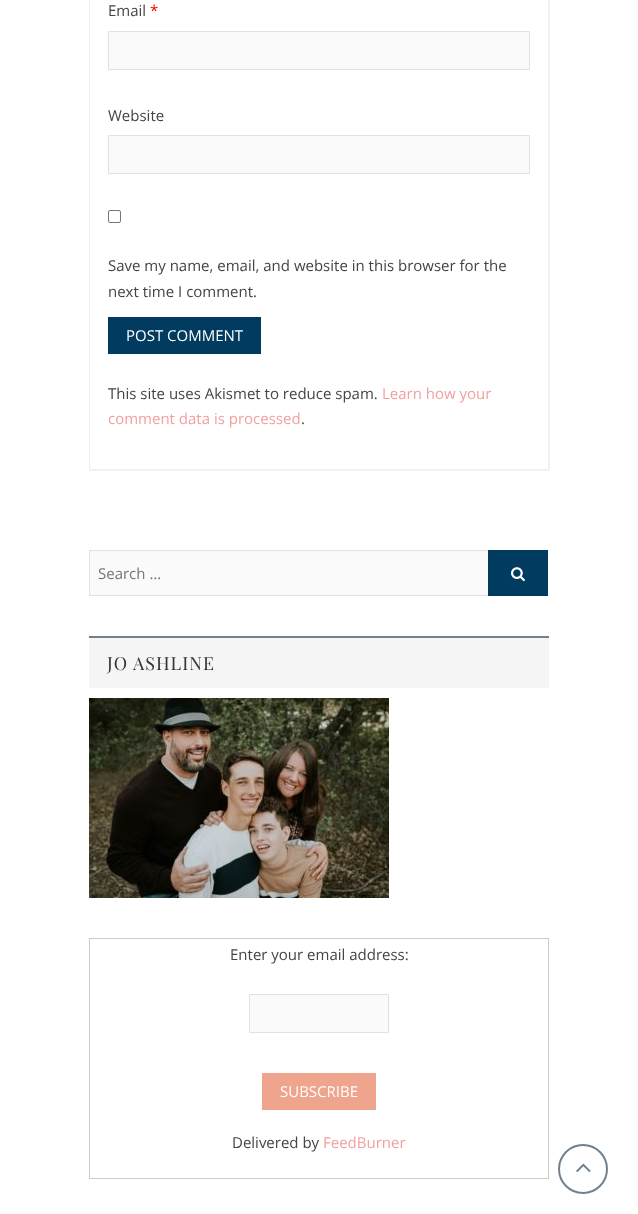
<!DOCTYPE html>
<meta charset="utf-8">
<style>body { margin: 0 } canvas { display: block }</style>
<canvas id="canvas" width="638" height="1214"></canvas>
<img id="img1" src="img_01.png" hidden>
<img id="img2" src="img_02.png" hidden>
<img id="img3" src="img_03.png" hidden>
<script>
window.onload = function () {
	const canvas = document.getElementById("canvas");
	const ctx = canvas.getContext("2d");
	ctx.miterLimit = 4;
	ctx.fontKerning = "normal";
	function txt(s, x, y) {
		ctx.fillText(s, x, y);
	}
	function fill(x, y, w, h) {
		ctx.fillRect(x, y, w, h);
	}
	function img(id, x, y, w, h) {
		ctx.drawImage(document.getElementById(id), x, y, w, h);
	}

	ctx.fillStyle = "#FFFFFF";
	fill(0, 0, 638, 1214);
	ctx.save();
	ctx.beginPath();
	ctx.moveTo(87, 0);
	ctx.lineTo(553, 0);
	ctx.lineTo(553, 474);
	ctx.lineTo(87, 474);
	ctx.closePath();
	ctx.moveTo(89, -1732);
	ctx.lineTo(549, -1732);
	ctx.lineTo(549, 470);
	ctx.lineTo(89, 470);
	ctx.closePath();
	ctx.clip("evenodd");
	ctx.fillStyle = "rgba(0, 0, 0, 0.05)";
	ctx.filter = "blur(0.5px)";
	ctx.beginPath();
	ctx.rect(90, -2, 460, 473);
	ctx.fill();
	ctx.filter = "none";
	ctx.restore();
	ctx.strokeStyle = "#EFEFEF";
	ctx.strokeRect(89.5, -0.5, 459, 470);
	ctx.fillStyle = "#FAFAFA";
	ctx.beginPath();
	ctx.rect(108.5, 31.5, 421, 38);
	ctx.fill();
	ctx.strokeStyle = "#E1E1E1";
	ctx.stroke();
	ctx.beginPath();
	ctx.rect(108.5, 135.5, 421, 38);
	ctx.fill();
	ctx.stroke();
	ctx.beginPath();
	ctx.roundRect(108.5, 210.5, 12, 12, 1.5);
	ctx.strokeStyle = "#767676";
	ctx.stroke();
	ctx.fillStyle = "#013C60";
	fill(108, 317, 153, 37);
	ctx.fillStyle = "#FAFAFA";
	ctx.beginPath();
	ctx.rect(89.5, 550.5, 399, 45);
	ctx.fill();
	ctx.strokeStyle = "#E1E1E1";
	ctx.stroke();
	ctx.fillStyle = "#013C60";
	fill(488, 550, 60, 46);
	img("img1", 511, 567, 14, 15);
	ctx.fillStyle = "#F5F5F5";
	fill(89, 638, 460, 50);
	ctx.fillStyle = "#708090";
	fill(89, 636, 460, 2);
	img("img2", 89, 698, 300, 200);
	ctx.strokeStyle = "#CCCCCC";
	ctx.strokeRect(89.5, 938.5, 459, 240);
	ctx.fillStyle = "#FAFAFA";
	ctx.beginPath();
	ctx.rect(249.5, 994.5, 139, 38);
	ctx.fill();
	ctx.strokeStyle = "#E1E1E1";
	ctx.stroke();
	ctx.fillStyle = "#EFA48D";
	fill(262, 1073, 114, 37);
	ctx.beginPath();
	ctx.arc(583, 1169, 24, 0, Math.PI * 2);
	ctx.strokeStyle = "#708090";
	ctx.lineWidth = 2;
	ctx.stroke();
	img("img3", 576, 1163, 15, 9);
	ctx.font = "15px Open Sans";
	ctx.fillStyle = "#444444";
	txt("Email", 108, 16);
	ctx.fillStyle = "#FF0000";
	txt("*", 150, 16);
	ctx.fillStyle = "#444444";
	txt("Website", 108, 121);
	txt("Save my name, email, and website in this browser for the", 108, 271);
	txt("next time I comment.", 108, 297);
	ctx.fillStyle = "#FFFFFF";
	txt("POST COMMENT", 126, 341);
	ctx.fillStyle = "#444444";
	txt("This site uses Akismet to reduce spam.", 108, 399);
	ctx.fillStyle = "#F29F9F";
	txt("Learn how your", 382, 399);
	txt("comment data is processed", 108, 424);
	ctx.fillStyle = "#444444";
	txt(".", 301, 424);
	ctx.fillStyle = "#757575";
	txt("Search …", 98, 579);
	ctx.letterSpacing = "1px";
	ctx.font = "18px Playfair Display";
	ctx.fillStyle = "#333333";
	txt("JO ASHLINE", 107, 670);
	ctx.letterSpacing = "0px";
	ctx.font = "15px Open Sans";
	ctx.fillStyle = "#444444";
	txt("Enter your email address:", 230, 960);
	ctx.fillStyle = "#FFFFFF";
	txt("SUBSCRIBE", 280, 1097);
	ctx.fillStyle = "#444444";
	txt("Delivered by", 232, 1148);
	ctx.fillStyle = "#F29F9F";
	txt("FeedBurner", 323, 1148);
};
</script>
